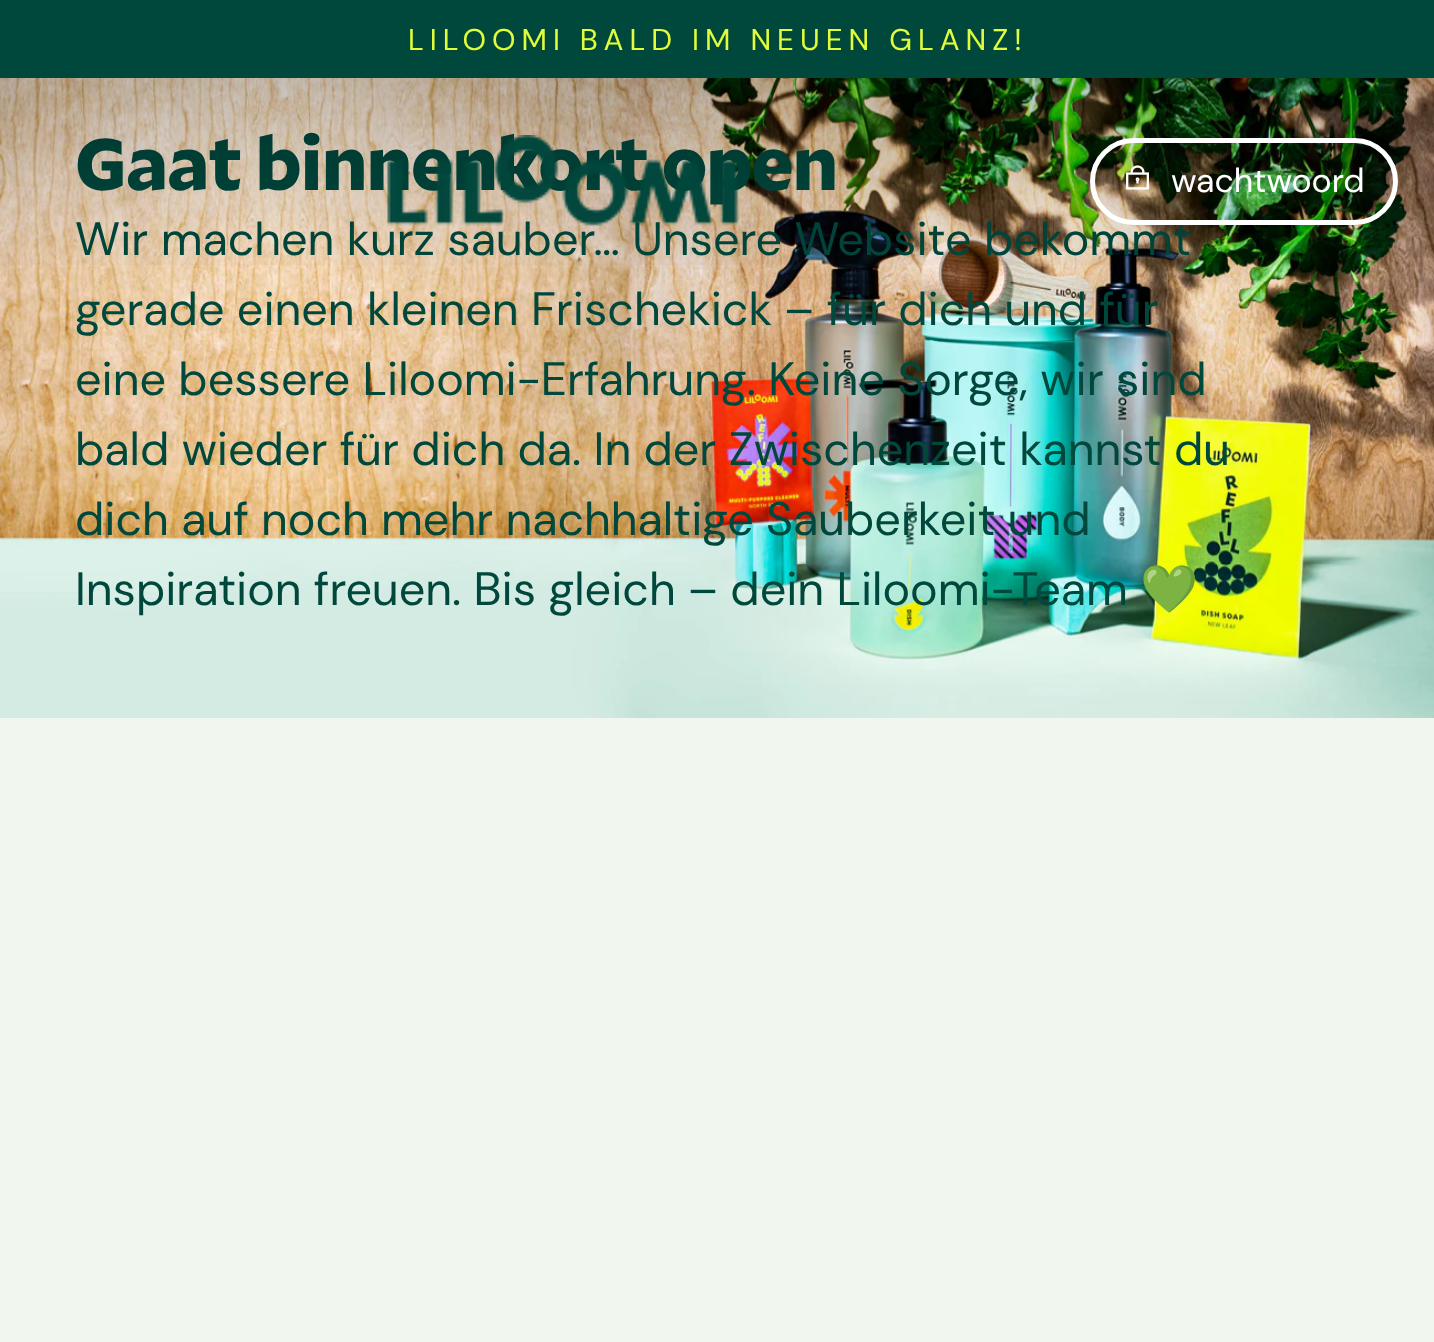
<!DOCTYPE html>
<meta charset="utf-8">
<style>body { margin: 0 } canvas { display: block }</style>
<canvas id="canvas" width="1434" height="1342"></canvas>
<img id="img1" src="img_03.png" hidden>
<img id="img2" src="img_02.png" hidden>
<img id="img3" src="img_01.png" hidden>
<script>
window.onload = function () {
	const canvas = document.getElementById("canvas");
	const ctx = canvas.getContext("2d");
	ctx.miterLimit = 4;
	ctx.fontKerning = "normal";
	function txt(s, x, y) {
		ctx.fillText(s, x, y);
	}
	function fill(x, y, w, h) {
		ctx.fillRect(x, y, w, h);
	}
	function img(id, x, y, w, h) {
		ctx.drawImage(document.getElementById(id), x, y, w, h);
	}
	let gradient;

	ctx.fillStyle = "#F1F7EF";
	fill(0, 0, 1434, 1342);
	ctx.fillStyle = "#00473C";
	fill(0, 0, 1434, 78);
	img("img1", 0, 78, 1434, 640);
	ctx.letterSpacing = "6px";
	ctx.font = "30px DM Sans";
	ctx.fillStyle = "#E1FD39";
	txt("LILOOMI BALD IM NEUEN GLANZ!", 408, 50);
	ctx.letterSpacing = "-1.75px";
	ctx.font = "900 70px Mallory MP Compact";
	ctx.fillStyle = "#00473C";
	txt("Gaat binnenkort open", 75, 190);
	ctx.letterSpacing = "0px";
	ctx.font = "46.7px DM Sans";
	txt("Wir machen kurz sauber… Unsere Website bekommt", 75, 255);
	gradient = ctx.createLinearGradient(718, 0, 718, 285);
	gradient.addColorStop(0, "rgba(0, 0, 0, 0.3)");
	gradient.addColorStop(1, "rgba(0, 0, 0, 0)");
	ctx.fillStyle = gradient;
	fill(0, 78, 1434, 187);
	ctx.beginPath();
	ctx.roundRect(1092.5, 140.5, 303, 82, 41);
	ctx.strokeStyle = "#FFFFFF";
	ctx.lineWidth = 5;
	ctx.stroke();
	img("img2", 1126, 165, 23, 25);
	ctx.font = "34px DM Sans";
	ctx.fillStyle = "#FFFFFF";
	txt("wachtwoord", 1171, 192);
	img("img3", 387, 135, 352, 91);
	ctx.font = "46.7px DM Sans";
	ctx.fillStyle = "#00473C";
	txt("gerade einen kleinen Frischekick – für dich und für", 75, 325);
	txt("eine bessere Liloomi-Erfahrung. Keine Sorge, wir sind", 75, 395);
	txt("bald wieder für dich da. In der Zwischenzeit kannst du", 75, 465);
	txt("dich auf noch mehr nachhaltige Sauberkeit und", 75, 535);
	txt("Inspiration freuen. Bis gleich – dein Liloomi-Team", 75, 605);
	ctx.font = "46.7px Noto Color Emoji";
	txt("💚", 1140, 605);
};
</script>
